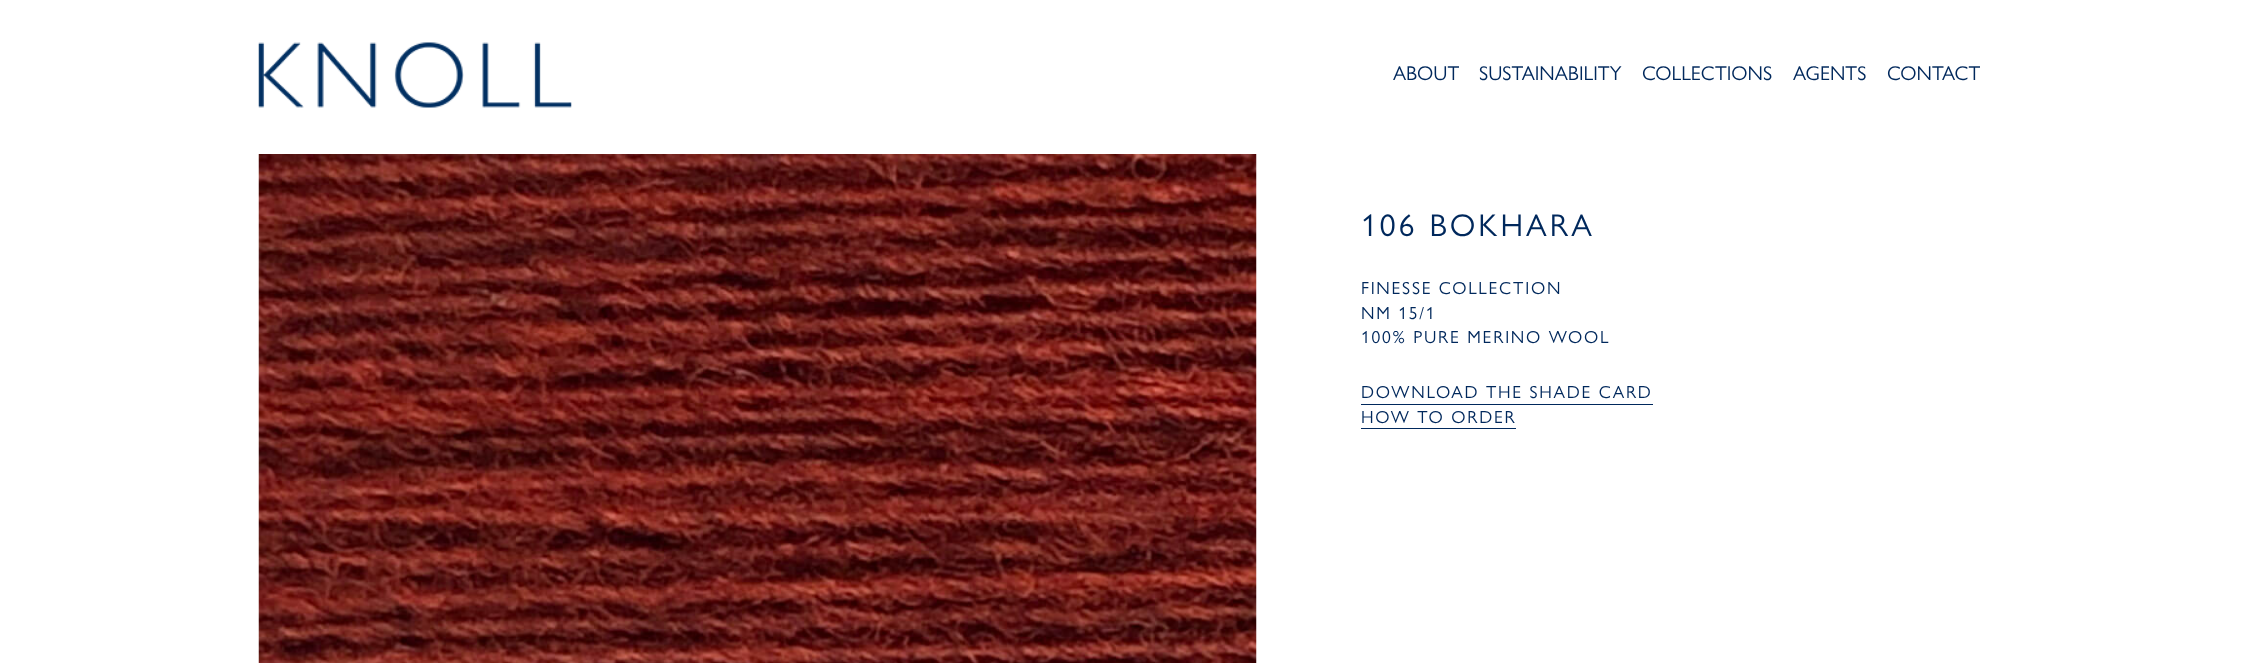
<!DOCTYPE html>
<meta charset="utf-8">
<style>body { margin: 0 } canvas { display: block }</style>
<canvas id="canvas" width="2266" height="663"></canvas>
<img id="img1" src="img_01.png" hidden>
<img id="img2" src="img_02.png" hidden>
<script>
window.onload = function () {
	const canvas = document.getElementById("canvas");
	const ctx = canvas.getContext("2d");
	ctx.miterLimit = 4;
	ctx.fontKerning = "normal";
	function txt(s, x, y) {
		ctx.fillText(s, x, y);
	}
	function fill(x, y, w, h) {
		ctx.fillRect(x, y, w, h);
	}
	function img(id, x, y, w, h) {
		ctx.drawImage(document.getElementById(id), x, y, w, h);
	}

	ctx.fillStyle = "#FFFFFF";
	fill(0, 0, 2266, 663);
	img("img1", 258, 42, 314, 66);
	img("img2", 258, 154, 999, 509);
	ctx.fillStyle = "#00285C";
	fill(1361, 404, 292, 1);
	fill(1361, 428, 155, 1);
	ctx.font = "20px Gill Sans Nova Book";
	txt("ABOUT", 1393, 80);
	txt("SUSTAINABILITY", 1479, 80);
	txt("COLLECTIONS", 1642, 80);
	txt("AGENTS", 1793, 80);
	txt("CONTACT", 1887, 80);
	ctx.letterSpacing = "3.1px";
	ctx.font = "31.5px Gill Sans Nova Book";
	txt("106 BOKHARA", 1361, 236);
	ctx.letterSpacing = "1.75px";
	ctx.font = "17.5px Gill Sans Nova Book";
	txt("FINESSE COLLECTION", 1361, 294);
	txt("NM 15/1", 1361, 319);
	txt("100% PURE MERINO WOOL", 1361, 343);
	txt("DOWNLOAD THE SHADE CARD", 1361, 398);
	txt("HOW TO ORDER", 1361, 423);
};
</script>
